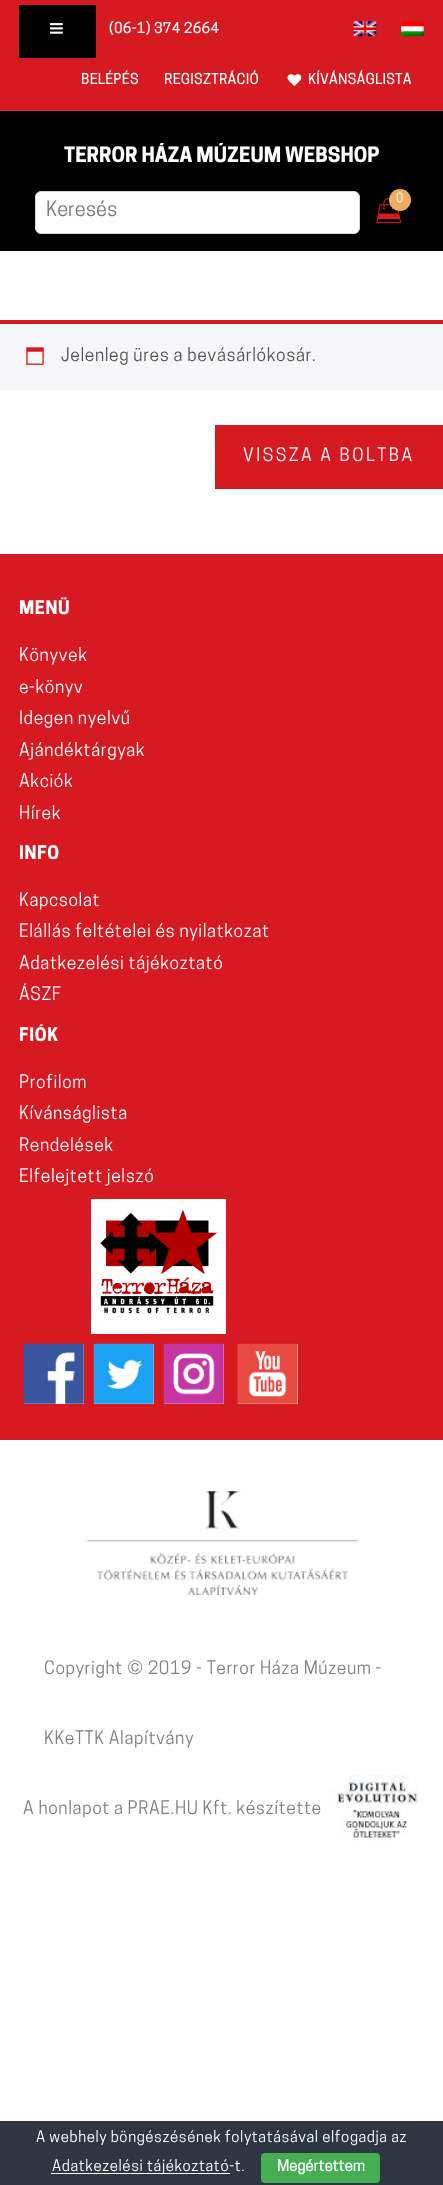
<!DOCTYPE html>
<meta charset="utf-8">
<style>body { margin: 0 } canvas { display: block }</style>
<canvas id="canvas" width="443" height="2185"></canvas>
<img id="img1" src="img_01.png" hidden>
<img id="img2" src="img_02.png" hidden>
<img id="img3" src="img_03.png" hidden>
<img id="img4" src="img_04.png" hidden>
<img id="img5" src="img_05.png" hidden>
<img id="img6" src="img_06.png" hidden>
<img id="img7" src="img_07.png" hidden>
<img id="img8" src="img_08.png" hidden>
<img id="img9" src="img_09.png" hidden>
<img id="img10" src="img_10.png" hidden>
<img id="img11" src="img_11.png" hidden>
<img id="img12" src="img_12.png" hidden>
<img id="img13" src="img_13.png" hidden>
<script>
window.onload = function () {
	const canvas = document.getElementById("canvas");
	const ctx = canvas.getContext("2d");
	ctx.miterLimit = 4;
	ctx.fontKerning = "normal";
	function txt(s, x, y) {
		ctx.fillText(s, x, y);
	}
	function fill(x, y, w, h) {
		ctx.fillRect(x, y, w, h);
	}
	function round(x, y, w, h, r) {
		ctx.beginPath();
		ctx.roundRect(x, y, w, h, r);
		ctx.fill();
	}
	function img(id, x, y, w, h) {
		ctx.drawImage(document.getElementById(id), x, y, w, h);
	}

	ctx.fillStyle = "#FFFFFF";
	fill(0, 0, 443, 2185);
	ctx.fillStyle = "#000000";
	fill(0, 111, 443, 140);
	ctx.fillStyle = "#D71921";
	fill(0, 0, 443, 110);
	ctx.fillStyle = "#DA2B33";
	fill(0, 110, 443, 1);
	ctx.fillStyle = "#000000";
	fill(19, 5, 77, 53);
	img("img1", 50, 23, 13, 11);
	img("img2", 353, 21, 24, 16);
	img("img3", 401, 21, 23, 16);
	img("img4", 287, 74, 15, 12);
	img("img5", 376, 198, 25, 26);
	ctx.fillStyle = "#EDAD62";
	ctx.beginPath();
	ctx.arc(400, 200, 11, 0, Math.PI * 2);
	ctx.fill();
	ctx.fillStyle = "#FFFFFF";
	ctx.beginPath();
	ctx.roundRect(35.5, 191.5, 324, 42, 5.5);
	ctx.fill();
	ctx.strokeStyle = "#D8D8D8";
	ctx.stroke();
	ctx.fillStyle = "#F6F5F8";
	fill(0, 324, 443, 66);
	ctx.fillStyle = "#D71921";
	fill(0, 320, 443, 4);
	img("img6", 26, 347, 18, 18);
	fill(215, 425, 228, 64);
	fill(0, 554, 443, 886);
	ctx.fillStyle = "#FFFFFF";
	fill(91, 1199, 135, 135);
	img("img7", 100, 1209, 117, 105);
	fill(24, 1344, 60, 60);
	img("img8", 23, 1343, 61, 61);
	fill(94, 1344, 60, 60);
	img("img9", 93, 1343, 61, 61);
	fill(164, 1344, 60, 60);
	img("img10", 163, 1343, 61, 61);
	fill(238, 1344, 60, 60);
	img("img11", 237, 1343, 61, 61);
	img("img12", 86, 1491, 273, 104);
	img("img13", 329, 1775, 90, 66);
	ctx.fillStyle = "#2E363F";
	fill(0, 2121, 443, 64);
	ctx.fillStyle = "#FFFFFF";
	fill(51, 2173, 179, 1);
	ctx.fillStyle = "#45AE52";
	round(261, 2153, 119, 30, 4);
	ctx.letterSpacing = "0.6px";
	ctx.font = "bold 13.75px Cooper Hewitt";
	ctx.fillStyle = "#FFFFFF";
	txt("(06-1) 374 2664", 109, 33);
	txt("BELÉPÉS", 81, 84);
	txt("REGISZTRÁCIÓ", 164, 84);
	txt("KÍVÁNSÁGLISTA", 308, 84);
	ctx.letterSpacing = "0px";
	ctx.font = "bold 20px 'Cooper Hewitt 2'";
	txt("TERROR HÁZA MÚZEUM WEBSHOP", 64, 162);
	ctx.letterSpacing = "0.6px";
	ctx.font = "12px Cooper Hewitt";
	txt("0", 396, 202);
	ctx.letterSpacing = "0px";
	ctx.font = "20px Cooper Hewitt";
	ctx.fillStyle = "#757575";
	txt("Keresés", 46, 216);
	ctx.letterSpacing = "0.6px";
	ctx.font = "17.5px Cooper Hewitt";
	ctx.fillStyle = "#515151";
	txt("Jelenleg üres a bevásárlókosár.", 61, 361);
	ctx.letterSpacing = "2.5px";
	ctx.fillStyle = "#FFFFFF";
	txt("VISSZA A BOLTBA", 243, 461);
	ctx.letterSpacing = "0.6px";
	ctx.font = "bold 17.5px 'Cooper Hewitt 2'";
	txt("MENÜ", 19, 614);
	ctx.font = "17.5px Cooper Hewitt";
	txt("Könyvek", 19, 661);
	txt("e-könyv", 19, 693);
	txt("Idegen nyelvű", 19, 724);
	txt("Ajándéktárgyak", 19, 756);
	txt("Akciók", 19, 787);
	txt("Hírek", 19, 819);
	ctx.font = "bold 17.5px 'Cooper Hewitt 2'";
	txt("INFO", 19, 859);
	ctx.font = "17.5px Cooper Hewitt";
	txt("Kapcsolat", 19, 906);
	txt("Elállás feltételei és nyilatkozat", 19, 937);
	txt("Adatkezelési tájékoztató", 19, 969);
	txt("ÁSZF", 19, 1000);
	ctx.font = "bold 17.5px 'Cooper Hewitt 2'";
	txt("FIÓK", 19, 1041);
	ctx.font = "17.5px Cooper Hewitt";
	txt("Profilom", 19, 1088);
	txt("Kívánságlista", 19, 1119);
	txt("Rendelések", 19, 1151);
	txt("Elfelejtett jelszó", 19, 1182);
	ctx.fillStyle = "#7F7F7F";
	txt("Copyright © 2019 - Terror Háza Múzeum -", 44, 1674);
	txt("KKeTTK Alapítvány", 44, 1744);
	txt("A honlapot a PRAE.HU Kft. készítette", 23, 1814);
	ctx.font = "15px Cooper Hewitt";
	ctx.fillStyle = "#FFFFFF";
	txt("A webhely böngészésének folytatásával elfogadja az", 36, 2142);
	txt("Adatkezelési tájékoztató-t.", 52, 2171);
	ctx.letterSpacing = "0px";
	ctx.font = "bold 15px Cooper Hewitt";
	txt("Megértettem", 277, 2171);
};
</script>
